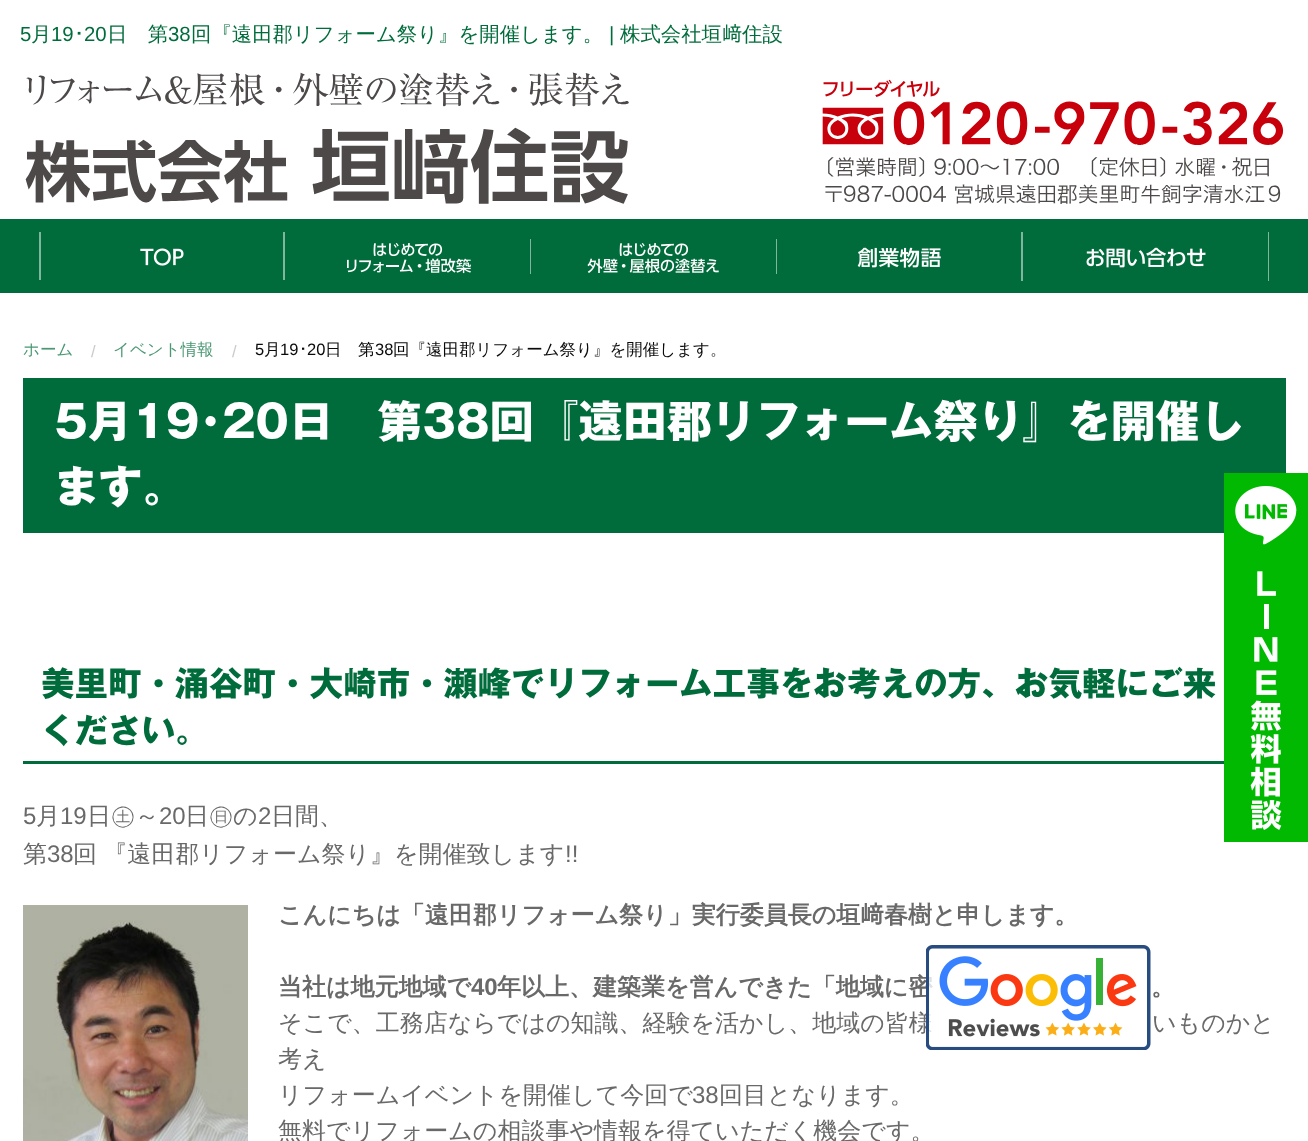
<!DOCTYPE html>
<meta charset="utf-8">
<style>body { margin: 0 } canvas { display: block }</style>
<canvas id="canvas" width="1308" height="1141"></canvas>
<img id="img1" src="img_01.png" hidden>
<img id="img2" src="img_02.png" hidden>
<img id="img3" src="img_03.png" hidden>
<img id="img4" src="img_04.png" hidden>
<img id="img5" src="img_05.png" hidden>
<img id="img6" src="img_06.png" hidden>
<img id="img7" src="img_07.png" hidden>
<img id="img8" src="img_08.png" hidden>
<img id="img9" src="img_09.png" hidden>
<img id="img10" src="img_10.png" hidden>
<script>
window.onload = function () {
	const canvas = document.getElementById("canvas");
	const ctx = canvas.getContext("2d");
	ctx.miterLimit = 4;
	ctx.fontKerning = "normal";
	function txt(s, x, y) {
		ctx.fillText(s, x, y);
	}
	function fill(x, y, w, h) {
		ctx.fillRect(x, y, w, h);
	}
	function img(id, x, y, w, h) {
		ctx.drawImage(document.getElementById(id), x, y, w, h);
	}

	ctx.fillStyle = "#FFFFFF";
	fill(0, 0, 1308, 1141);
	img("img1", 25, 72, 604, 132);
	img("img2", 822, 79, 462, 125);
	ctx.fillStyle = "#006C3B";
	fill(0, 219, 1308, 74);
	img("img3", 39, 232, 246, 48);
	img("img4", 347, 239, 184, 35);
	img("img5", 587, 239, 190, 35);
	img("img6", 857, 232, 166, 49);
	img("img7", 1086, 232, 183, 49);
	fill(23, 378, 1263, 155);
	fill(23, 761, 1201, 3);
	img("img8", 23, 905, 225, 236);
	img("img9", 1224, 473, 84, 369);
	ctx.font = "20.4px Liberation Sans";
	txt("5", 20, 41);
	ctx.font = "500 20.4px WenQuanYi Zen Hei";
	txt("月", 31, 41);
	ctx.font = "20.4px Liberation Sans";
	txt("19", 51, 41);
	ctx.font = "20.4px IPAPGothic";
	txt("･", 74, 41);
	ctx.font = "20.4px Liberation Sans";
	txt("20", 84, 41);
	ctx.font = "500 20.4px WenQuanYi Zen Hei";
	txt("日　第", 107, 41);
	ctx.font = "20.4px Liberation Sans";
	txt("38", 168, 41);
	ctx.font = "500 20.4px WenQuanYi Zen Hei";
	txt("回『遠田郡リフォーム祭り』を開催します。", 191, 41);
	ctx.font = "20.4px Liberation Sans";
	txt("|", 609, 41);
	ctx.font = "500 20.4px WenQuanYi Zen Hei";
	txt("株式会社垣", 620, 41);
	ctx.font = "20.4px IPAPGothic";
	txt("﨑", 722, 41);
	ctx.font = "500 20.4px WenQuanYi Zen Hei";
	txt("住設", 742, 41);
	ctx.font = "500 16.5px WenQuanYi Zen Hei";
	ctx.fillStyle = "#4C9875";
	txt("ホーム", 23, 355);
	ctx.font = "16.5px Liberation Sans";
	ctx.fillStyle = "#CACACA";
	txt("/", 91, 357);
	ctx.font = "500 16.5px WenQuanYi Zen Hei";
	ctx.fillStyle = "#4C9875";
	txt("イベント情報", 113, 355);
	ctx.font = "16.5px Liberation Sans";
	ctx.fillStyle = "#CACACA";
	txt("/", 232, 357);
	ctx.fillStyle = "#0A0A0A";
	txt("5", 255, 355);
	ctx.font = "500 16.5px WenQuanYi Zen Hei";
	txt("月", 264, 355);
	ctx.font = "16.5px Liberation Sans";
	txt("19", 280, 355);
	ctx.font = "16.5px IPAPGothic";
	txt("･", 299, 355);
	ctx.font = "16.5px Liberation Sans";
	txt("20", 307, 355);
	ctx.font = "500 16.5px WenQuanYi Zen Hei";
	txt("日　第", 325, 355);
	ctx.font = "16.5px Liberation Sans";
	txt("38", 375, 355);
	ctx.font = "500 16.5px WenQuanYi Zen Hei";
	txt("回『遠田郡リフォーム祭り』を開催します。", 393, 355);
	ctx.font = "bold 44.4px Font";
	ctx.fillStyle = "#FFFFFF";
	txt("5月19･20日　第38回『遠田郡リフォーム祭り』を開催し", 54, 438);
	txt("ます。", 54, 503);
	ctx.font = "bold 33.6px Font";
	ctx.fillStyle = "#006C3B";
	txt("美里町・涌谷町・大崎市・瀬峰でリフォーム工事をお考えの方、お気軽にご来", 41, 696);
	txt("ください。", 41, 743);
	ctx.font = "24px Liberation Sans";
	ctx.fillStyle = "#696969";
	txt("5", 23, 824);
	ctx.font = "500 24px WenQuanYi Zen Hei";
	txt("月", 36, 824);
	ctx.font = "24px Liberation Sans";
	txt("19", 60, 824);
	ctx.font = "500 24px WenQuanYi Zen Hei";
	txt("日㊏～", 87, 824);
	ctx.font = "24px Liberation Sans";
	txt("20", 159, 824);
	ctx.font = "500 24px WenQuanYi Zen Hei";
	txt("日㊐の", 185, 824);
	ctx.font = "24px Liberation Sans";
	txt("2", 258, 824);
	ctx.font = "500 24px WenQuanYi Zen Hei";
	txt("日間、", 271, 824);
	txt("第", 23, 862);
	ctx.font = "24px Liberation Sans";
	txt("38", 47, 862);
	ctx.wordSpacing = "-1px";
	ctx.font = "500 24px WenQuanYi Zen Hei";
	txt("回 『遠田郡リフォーム祭り』を開催致します", 73, 862);
	ctx.wordSpacing = "0px";
	ctx.font = "24px Liberation Sans";
	txt("!!", 565, 862);
	ctx.font = "bold 24px WenQuanYi Zen Hei";
	txt("こんにちは「遠田郡リフォーム祭り」実行委員長の垣", 278, 923);
	ctx.font = "bold 24px IPAPGothic";
	txt("﨑", 860, 923);
	ctx.font = "bold 24px WenQuanYi Zen Hei";
	txt("春樹と申します。", 884, 923);
	txt("当社は地元地域で", 278, 995);
	ctx.font = "bold 24px Liberation Sans";
	txt("40", 471, 995);
	ctx.font = "bold 24px WenQuanYi Zen Hei";
	txt("年以上、建築業を営んできた「地域に密", 497, 995);
	txt("。", 1151, 995);
	ctx.font = "500 24px WenQuanYi Zen Hei";
	txt("そこで、工務店ならではの知識、経験を活かし、地域の皆様", 278, 1031);
	txt("いものかと", 1152, 1031);
	txt("考え", 278, 1067);
	txt("リフォームイベントを開催して今回で", 278, 1103);
	ctx.font = "24px Liberation Sans";
	txt("38", 692, 1103);
	ctx.font = "500 24px WenQuanYi Zen Hei";
	txt("回目となります。", 719, 1103);
	txt("無料でリフォームの相談事や情報を得ていただく機会です。", 278, 1139);
	img("img10", 926, 945, 225, 105);
};
</script>
